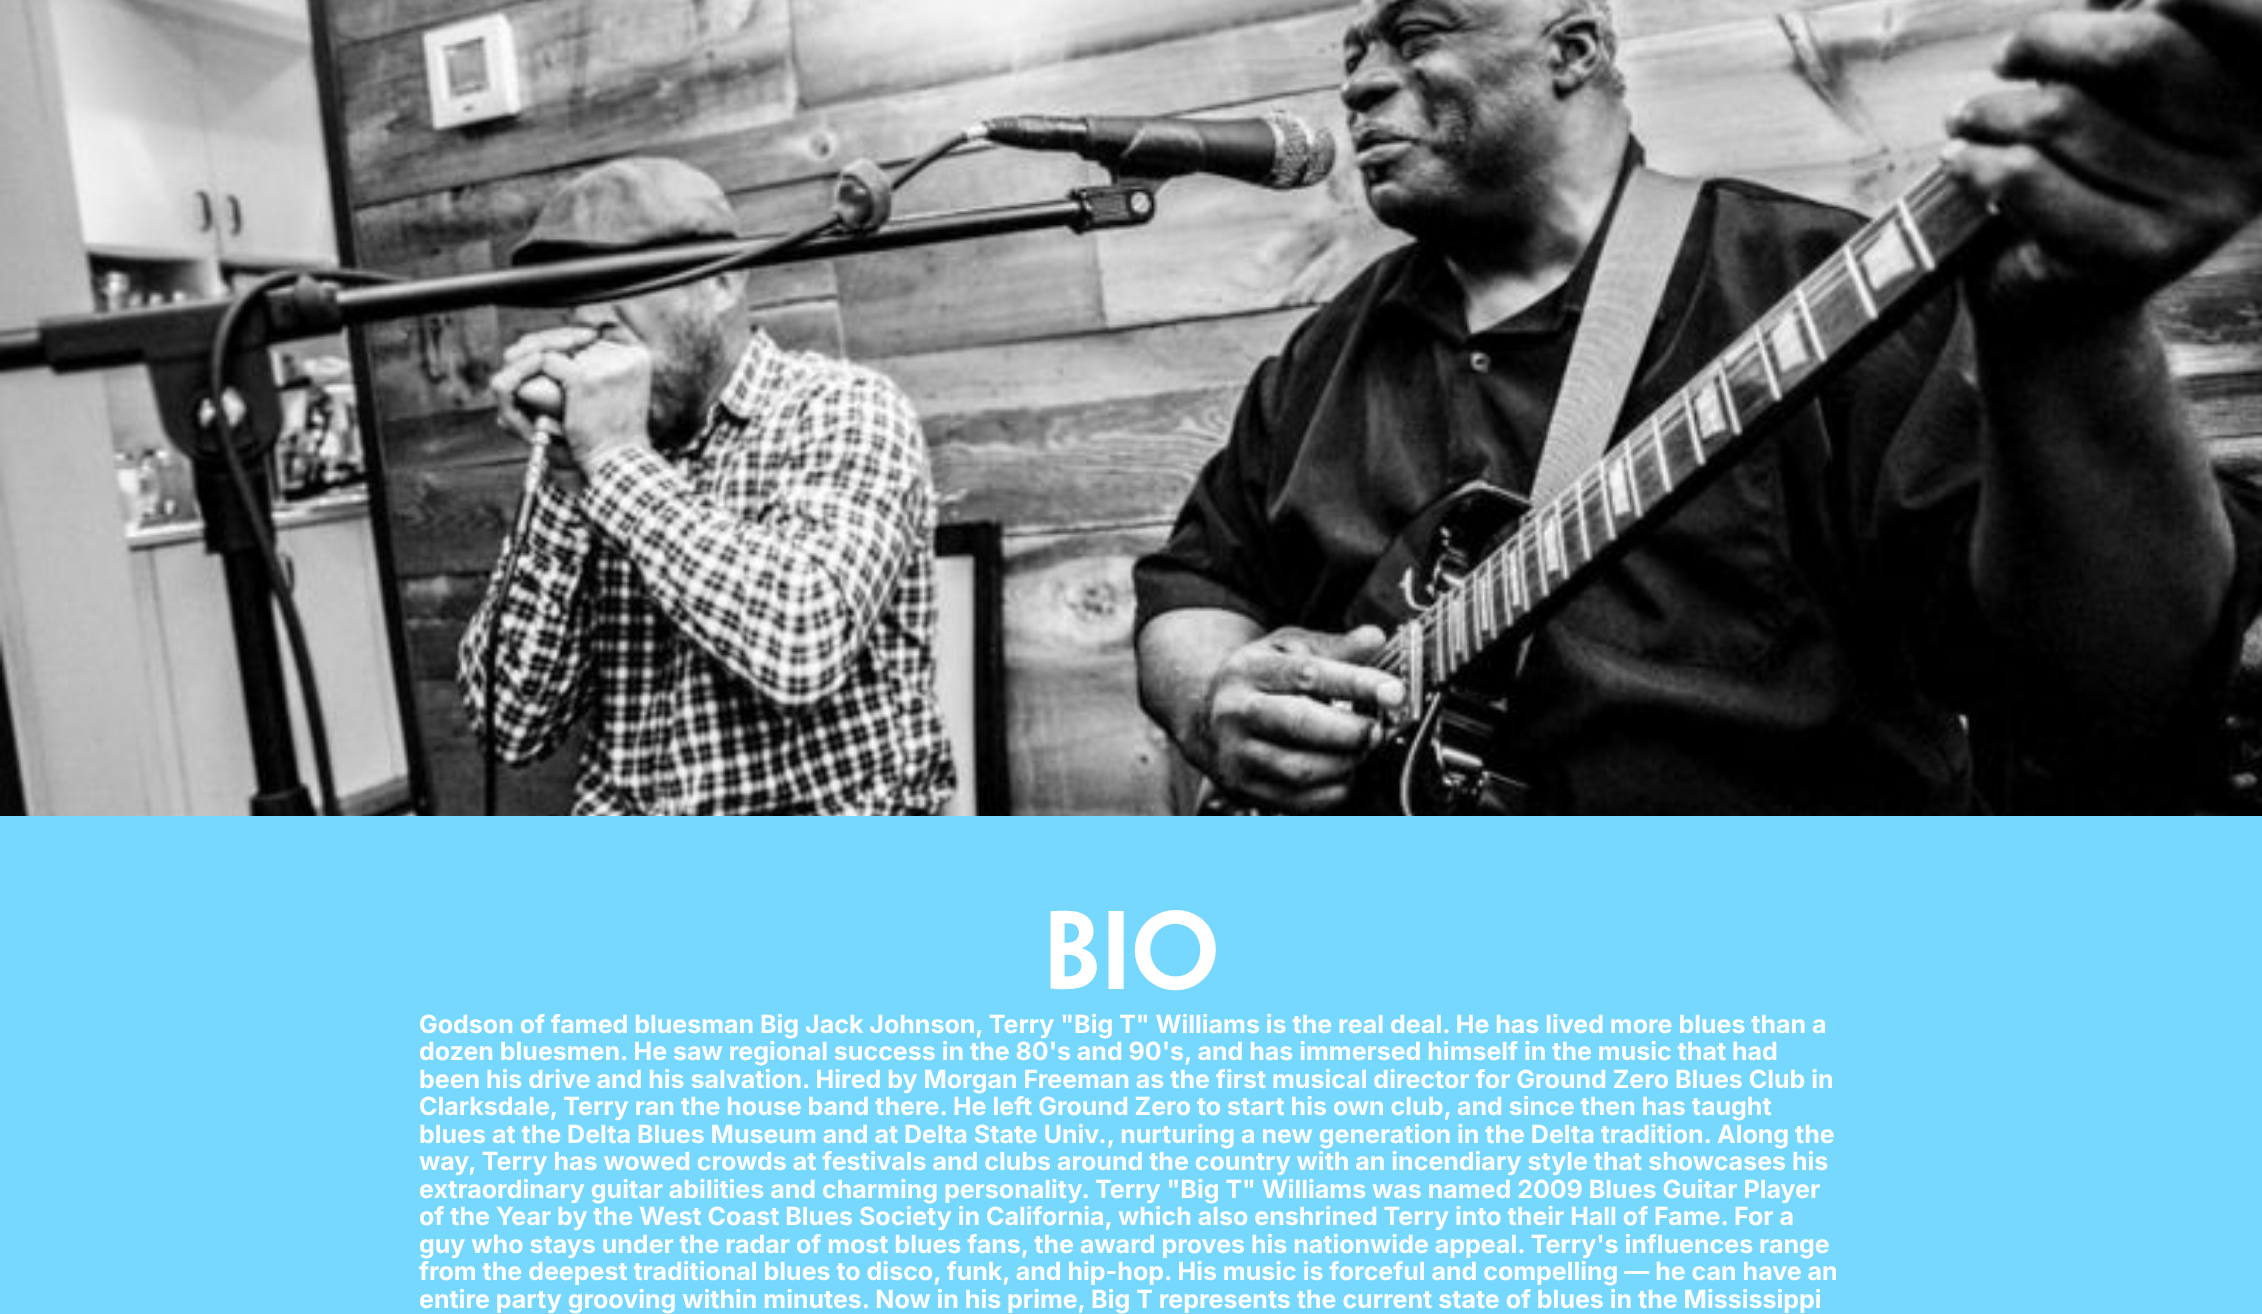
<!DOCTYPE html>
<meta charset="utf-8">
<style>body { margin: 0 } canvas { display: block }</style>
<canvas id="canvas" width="2262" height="1314"></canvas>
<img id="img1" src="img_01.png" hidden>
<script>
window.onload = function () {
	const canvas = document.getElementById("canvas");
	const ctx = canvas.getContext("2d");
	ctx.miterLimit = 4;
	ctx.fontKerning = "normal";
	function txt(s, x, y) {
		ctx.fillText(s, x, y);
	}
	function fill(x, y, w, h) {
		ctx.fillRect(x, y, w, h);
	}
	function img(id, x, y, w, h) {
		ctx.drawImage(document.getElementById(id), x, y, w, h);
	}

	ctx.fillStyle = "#77D8FF";
	fill(0, 0, 2262, 1314);
	img("img1", 0, 0, 2262, 816);
	ctx.font = "600 100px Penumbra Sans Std";
	ctx.fillStyle = "#FFFFFF";
	txt("Bio", 1043, 989);
	ctx.font = "bold 25px Inter";
	txt("Godson of famed bluesman Big Jack Johnson, Terry \"Big T\" Williams is the real deal. He has lived more blues than a", 419, 1033);
	txt("dozen bluesmen. He saw regional success in the 80's and 90's, and has immersed himself in the music that had", 419, 1060);
	txt("been his drive and his salvation. Hired by Morgan Freeman as the first musical director for Ground Zero Blues Club in", 419, 1088);
	txt("Clarksdale, Terry ran the house band there. He left Ground Zero to start his own club, and since then has taught", 419, 1115);
	txt("blues at the Delta Blues Museum and at Delta State Univ., nurturing a new generation in the Delta tradition. Along the", 419, 1143);
	txt("way, Terry has wowed crowds at festivals and clubs around the country with an incendiary style that showcases his", 419, 1170);
	txt("extraordinary guitar abilities and charming personality. Terry \"Big T\" Williams was named 2009 Blues Guitar Player", 419, 1198);
	txt("of the Year by the West Coast Blues Society in California, which also enshrined Terry into their Hall of Fame. For a", 419, 1225);
	txt("guy who stays under the radar of most blues fans, the award proves his nationwide appeal. Terry's influences range", 419, 1253);
	txt("from the deepest traditional blues to disco, funk, and hip-hop. His music is forceful and compelling — he can have an", 419, 1280);
	txt("entire party grooving within minutes. Now in his prime, Big T represents the current state of blues in the Mississippi", 419, 1308);
};
</script>
